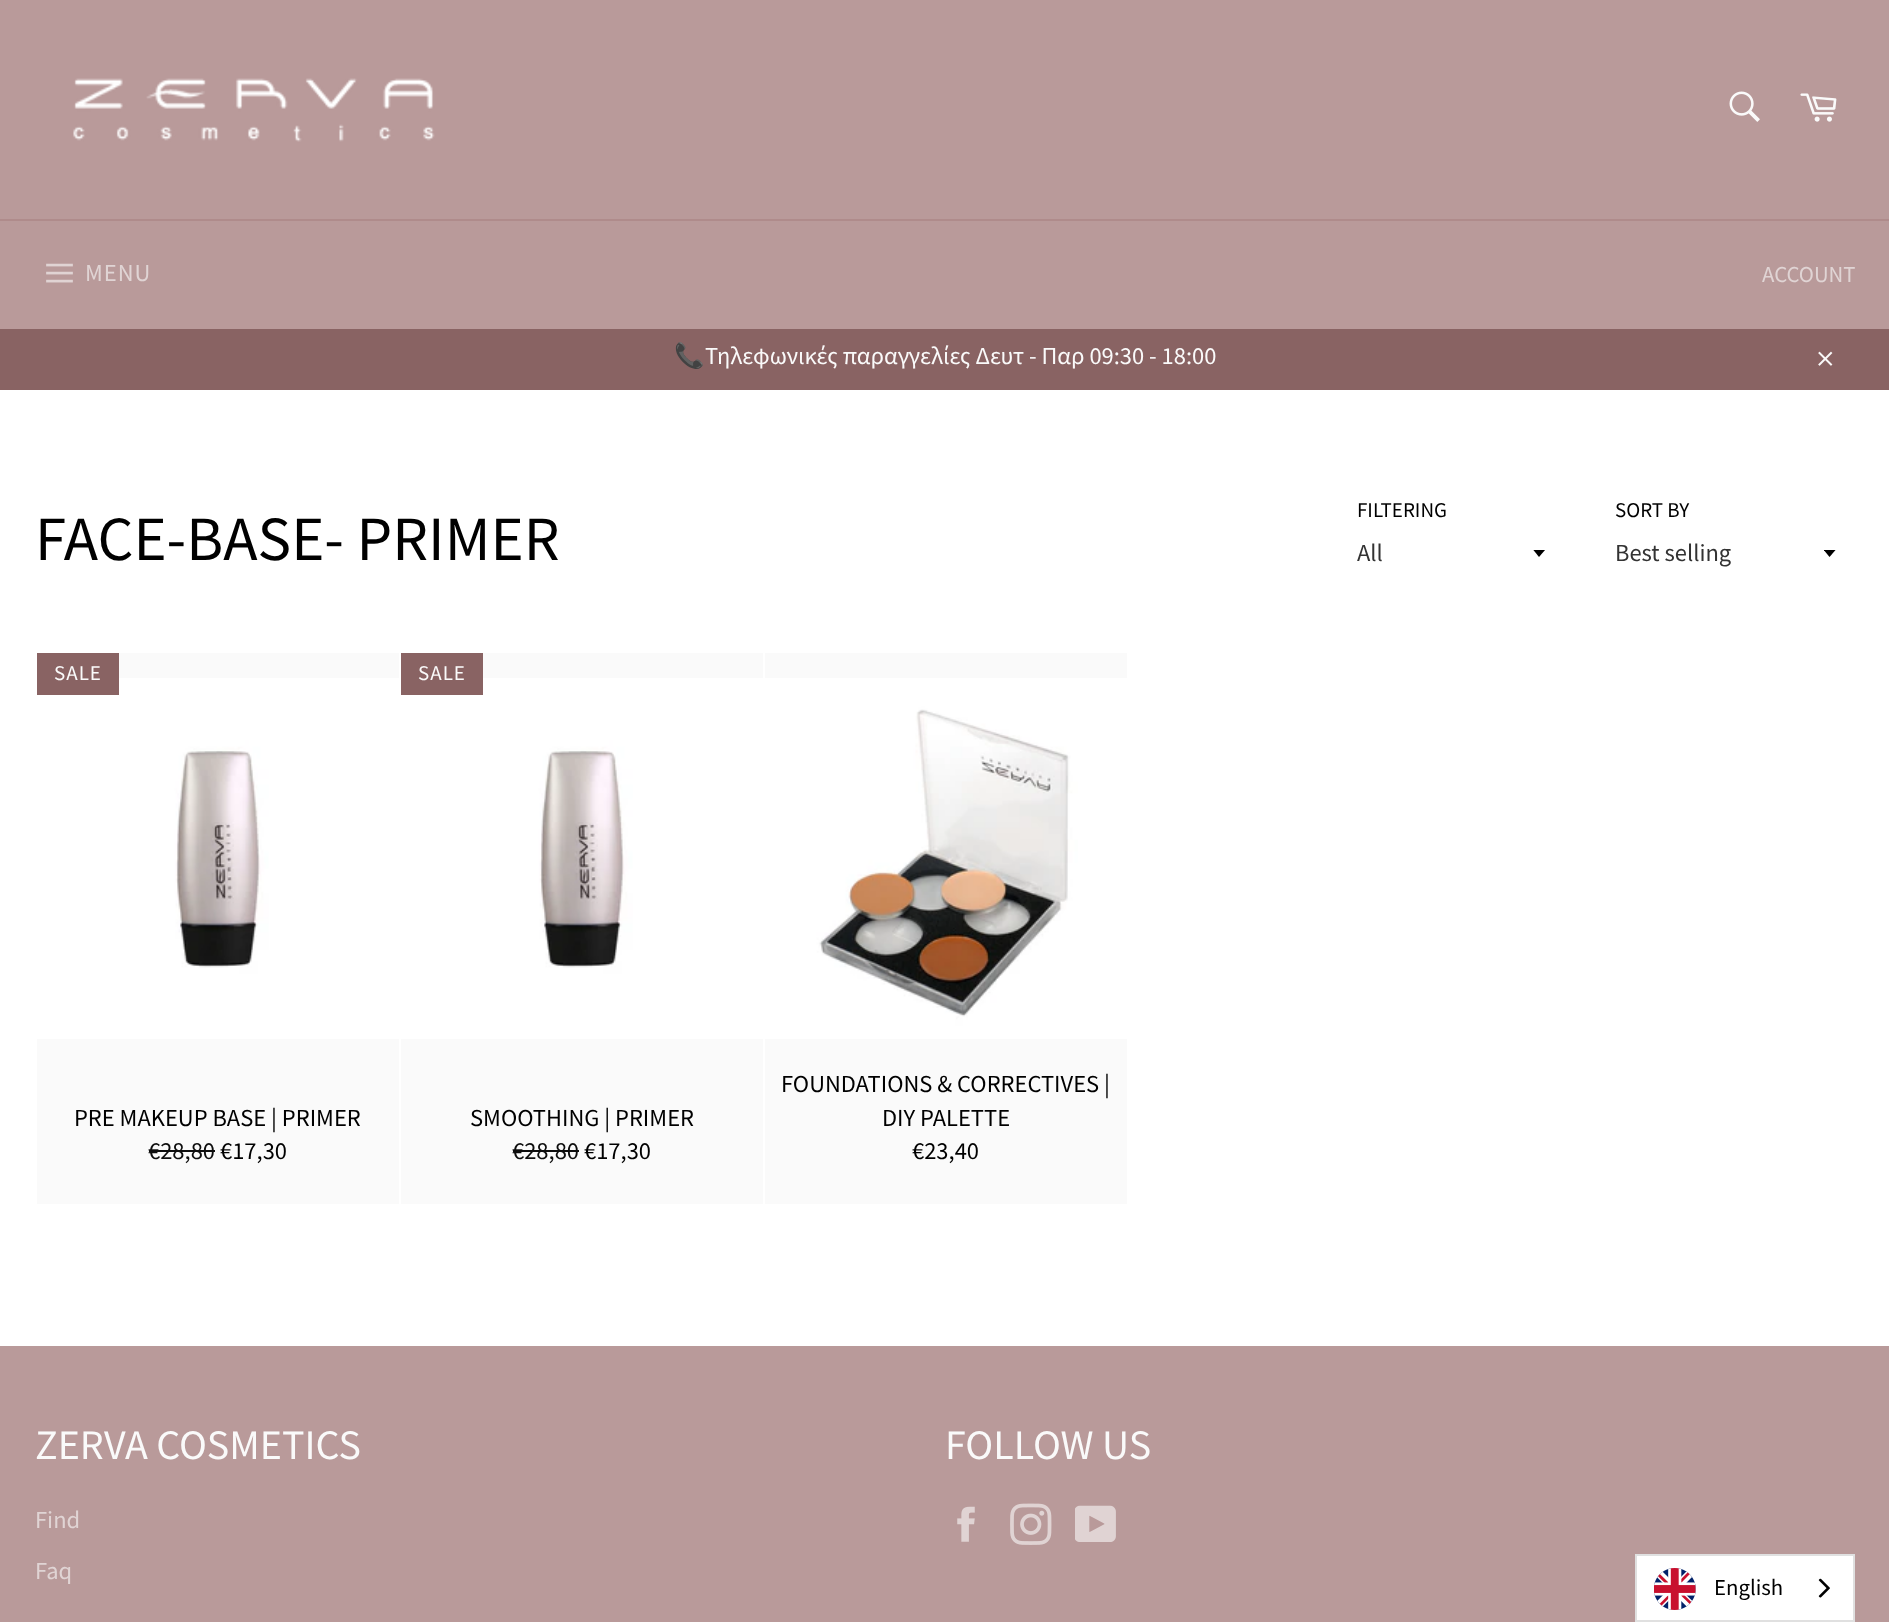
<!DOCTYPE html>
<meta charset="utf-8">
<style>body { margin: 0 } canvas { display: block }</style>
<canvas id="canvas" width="1889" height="1622"></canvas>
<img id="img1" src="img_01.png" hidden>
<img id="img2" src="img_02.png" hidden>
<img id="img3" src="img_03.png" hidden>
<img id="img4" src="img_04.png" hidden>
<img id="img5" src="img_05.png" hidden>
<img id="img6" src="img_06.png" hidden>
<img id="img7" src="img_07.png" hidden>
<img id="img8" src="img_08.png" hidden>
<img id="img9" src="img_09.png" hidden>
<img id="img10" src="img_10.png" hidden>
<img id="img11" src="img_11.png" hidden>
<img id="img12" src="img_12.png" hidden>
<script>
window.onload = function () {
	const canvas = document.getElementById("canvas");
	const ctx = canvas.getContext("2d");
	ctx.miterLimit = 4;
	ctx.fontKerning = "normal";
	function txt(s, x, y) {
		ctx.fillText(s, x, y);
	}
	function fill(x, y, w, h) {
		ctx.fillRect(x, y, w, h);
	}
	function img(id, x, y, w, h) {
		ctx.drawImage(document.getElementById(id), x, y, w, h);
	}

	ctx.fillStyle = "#FFFFFF";
	fill(0, 0, 1889, 1622);
	ctx.fillStyle = "#B99A9A";
	fill(0, 0, 1889, 219);
	img("img1", 73, 78, 362, 64);
	img("img2", 1729, 91, 31, 31);
	img("img3", 1800, 93, 37, 29);
	fill(0, 221, 1889, 108);
	ctx.fillStyle = "#AF8B8B";
	fill(0, 219, 1889, 2);
	img("img4", 46, 263, 27, 20);
	ctx.fillStyle = "#896363";
	fill(0, 329, 1889, 61);
	img("img5", 1818, 351, 15, 15);
	ctx.save();
	ctx.beginPath();
	ctx.rect(1533, 550, 14, 8);
	ctx.clip();
	ctx.fillStyle = "#000000";
	ctx.beginPath();
	ctx.moveTo(1533, 549.5);
	ctx.lineTo(1539, 557);
	ctx.lineTo(1545.5, 549.5);
	ctx.closePath();
	ctx.fill();
	ctx.restore();
	ctx.save();
	ctx.beginPath();
	ctx.rect(1824, 550, 14, 8);
	ctx.clip();
	ctx.fillStyle = "#000000";
	ctx.beginPath();
	ctx.moveTo(1823.5, 549.5);
	ctx.lineTo(1829.5, 557);
	ctx.lineTo(1836, 549.5);
	ctx.closePath();
	ctx.fill();
	ctx.restore();
	ctx.fillStyle = "#FAFAFA";
	fill(37, 653, 362, 551);
	img("img6", 37, 678, 362, 361);
	ctx.fillStyle = "#896363";
	fill(37, 653, 82, 42);
	ctx.fillStyle = "#0D0D0D";
	fill(149, 1150, 66, 2);
	ctx.fillStyle = "#FAFAFA";
	fill(401, 653, 362, 551);
	img("img6", 401, 678, 362, 361);
	ctx.fillStyle = "#896363";
	fill(401, 653, 82, 42);
	ctx.fillStyle = "#0D0D0D";
	fill(513, 1150, 66, 2);
	ctx.fillStyle = "#FAFAFA";
	fill(765, 653, 362, 551);
	img("img7", 765, 678, 362, 361);
	ctx.fillStyle = "#B99A9A";
	fill(0, 1346, 1889, 276);
	img("img8", 957, 1506, 18, 36);
	img("img9", 1010, 1503, 42, 42);
	img("img10", 1075, 1505, 41, 37);
	ctx.fillStyle = "#FFFFFF";
	ctx.beginPath();
	ctx.rect(1636, 1555, 218, 66);
	ctx.fill();
	ctx.strokeStyle = "#E0E0E0";
	ctx.lineWidth = 2;
	ctx.stroke();
	img("img11", 1654, 1568, 42, 42);
	img("img12", 1818, 1578, 12, 20);
	ctx.letterSpacing = "1px";
	ctx.font = "24.5px Source Sans Pro";
	ctx.fillStyle = "#E0D4D4";
	txt("MENU", 85, 281);
	ctx.letterSpacing = "0px";
	ctx.font = "22.75px Source Sans Pro";
	txt("ACCOUNT", 1762, 282);
	ctx.font = "24.5px Noto Color Emoji";
	ctx.fillStyle = "#FAFAFA";
	txt("📞", 674, 364);
	ctx.font = "24.5px Source Sans Pro";
	txt("Τηλεφωνικές παραγγελίες Δευτ - Παρ 09:30 - 18:00", 705, 364);
	ctx.font = "63px Source Sans Pro";
	ctx.fillStyle = "#000000";
	txt("FACE-BASE- PRIMER", 35, 560);
	ctx.font = "21px Source Sans Pro";
	txt("FILTERING", 1357, 517);
	ctx.font = "24.5px Source Sans Pro";
	ctx.fillStyle = "#333333";
	txt("All", 1357, 561);
	ctx.font = "21px Source Sans Pro";
	ctx.fillStyle = "#000000";
	txt("SORT BY", 1615, 517);
	ctx.font = "24.5px Source Sans Pro";
	ctx.fillStyle = "#333333";
	txt("Best selling", 1615, 561);
	ctx.letterSpacing = "1px";
	ctx.font = "21px Source Sans Pro";
	ctx.fillStyle = "#FAFAFA";
	txt("SALE", 54, 680);
	ctx.letterSpacing = "0px";
	ctx.font = "24.5px Source Sans Pro";
	ctx.fillStyle = "#000000";
	txt("PRE MAKEUP BASE | PRIMER", 74, 1126);
	ctx.fillStyle = "#0D0D0D";
	txt("€28,80", 148, 1159);
	ctx.fillStyle = "#000000";
	txt("€17,30", 220, 1159);
	ctx.letterSpacing = "1px";
	ctx.font = "21px Source Sans Pro";
	ctx.fillStyle = "#FAFAFA";
	txt("SALE", 418, 680);
	ctx.letterSpacing = "0px";
	ctx.font = "24.5px Source Sans Pro";
	ctx.fillStyle = "#000000";
	txt("SMOOTHING | PRIMER", 470, 1126);
	ctx.fillStyle = "#0D0D0D";
	txt("€28,80", 512, 1159);
	ctx.fillStyle = "#000000";
	txt("€17,30", 584, 1159);
	txt("FOUNDATIONS & CORRECTIVES |", 781, 1092);
	txt("DIY PALETTE", 882, 1126);
	txt("€23,40", 912, 1159);
	ctx.font = "42px Source Sans Pro";
	ctx.fillStyle = "#FAFAFA";
	txt("ZERVA COSMETICS", 35, 1459);
	ctx.font = "24.5px Source Sans Pro";
	ctx.fillStyle = "#E0D4D4";
	txt("Find", 35, 1528);
	txt("Faq", 35, 1579);
	ctx.font = "42px Source Sans Pro";
	ctx.fillStyle = "#FAFAFA";
	txt("FOLLOW US", 945, 1459);
	ctx.font = "22.75px Source Sans Pro";
	ctx.fillStyle = "#000000";
	txt("English", 1714, 1595);
};
</script>
